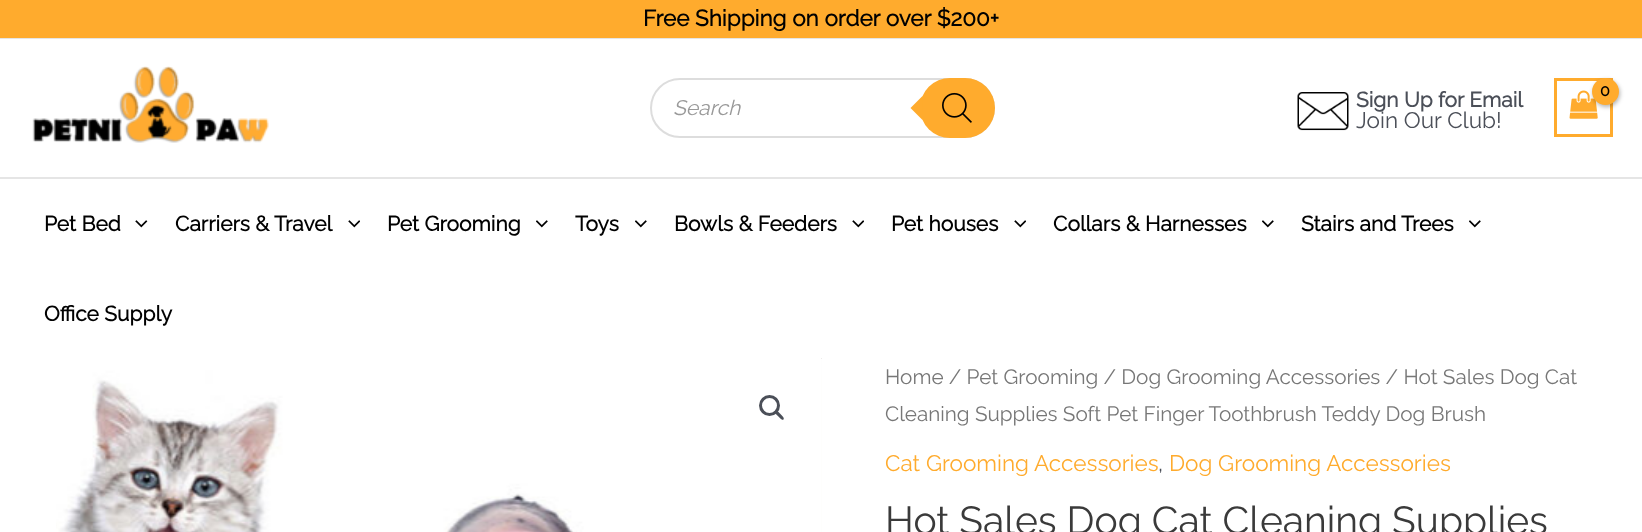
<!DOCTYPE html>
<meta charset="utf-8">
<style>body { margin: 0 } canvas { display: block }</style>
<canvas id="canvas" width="1642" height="532"></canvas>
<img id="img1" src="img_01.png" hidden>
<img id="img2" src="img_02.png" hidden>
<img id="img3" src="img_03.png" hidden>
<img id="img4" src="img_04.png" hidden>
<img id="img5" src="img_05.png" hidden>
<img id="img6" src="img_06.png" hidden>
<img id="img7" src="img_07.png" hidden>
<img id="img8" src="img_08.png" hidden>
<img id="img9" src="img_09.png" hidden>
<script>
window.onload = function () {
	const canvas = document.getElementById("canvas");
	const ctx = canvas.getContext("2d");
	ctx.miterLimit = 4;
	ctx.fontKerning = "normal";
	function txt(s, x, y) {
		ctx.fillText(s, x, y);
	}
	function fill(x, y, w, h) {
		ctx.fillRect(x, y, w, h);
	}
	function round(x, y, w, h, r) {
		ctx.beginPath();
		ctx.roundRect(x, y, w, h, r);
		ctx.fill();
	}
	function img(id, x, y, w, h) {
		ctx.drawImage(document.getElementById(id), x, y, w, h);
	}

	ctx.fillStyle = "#FFFFFF";
	fill(0, 0, 1642, 532);
	ctx.fillStyle = "#FFAB2D";
	fill(0, 0, 1642, 38);
	ctx.fillStyle = "#E5E5E5";
	fill(0, 38, 1642, 1);
	fill(0, 177, 1642, 2);
	img("img1", 32, 66, 237, 77);
	ctx.beginPath();
	ctx.roundRect(651, 79, 343, 58, 29);
	ctx.strokeStyle = "#DDDDDD";
	ctx.lineWidth = 2;
	ctx.stroke();
	ctx.fillStyle = "#FFAB2D";
	round(920, 78, 75, 60, 30);
	ctx.beginPath();
	ctx.moveTo(922.5, 96);
	ctx.lineTo(922.5, 120);
	ctx.lineTo(910.5, 108);
	ctx.closePath();
	ctx.fill();
	img("img2", 942, 92, 30, 31);
	img("img3", 1297, 92, 52, 39);
	ctx.strokeStyle = "#FFAB2D";
	ctx.lineWidth = 3;
	ctx.strokeRect(1555.5, 79.5, 56, 56);
	img("img4", 1569, 90, 29, 29);
	ctx.fillStyle = "rgba(0, 0, 0, 0.3)";
	ctx.filter = "blur(2px)";
	ctx.beginPath();
	ctx.roundRect(1593, 80, 27, 27, 13.5);
	ctx.fill();
	ctx.filter = "none";
	ctx.fillStyle = "#FFAB2D";
	ctx.beginPath();
	ctx.arc(1605.5, 91.5, 13.5, 0, Math.PI * 2);
	ctx.fill();
	img("img5", 135, 220, 13, 8);
	img("img6", 348, 220, 12, 8);
	img("img7", 536, 220, 12, 8);
	img("img7", 635, 220, 12, 8);
	img("img6", 852, 220, 12, 8);
	img("img6", 1014, 220, 12, 8);
	img("img7", 1262, 220, 12, 8);
	img("img7", 1469, 220, 12, 8);
	img("img8", 821, 358, 1, 174);
	img("img9", 56, 359, 766, 173);
	ctx.beginPath();
	ctx.arc(769.5, 405.5, 9, 0, Math.PI * 2);
	ctx.strokeStyle = "#4B4F58";
	ctx.stroke();
	ctx.fillStyle = "#4B4F58";
	ctx.beginPath();
	ctx.moveTo(775, 411);
	ctx.bezierCurveTo(776.5, 409, 779.5, 413, 780.5, 414);
	ctx.bezierCurveTo(781, 415, 785, 417.5, 783.5, 419.5);
	ctx.bezierCurveTo(782, 421, 779, 417, 778, 416);
	ctx.bezierCurveTo(777.5, 415.5, 773.5, 412.5, 775, 411);
	ctx.closePath();
	ctx.fill();
	ctx.font = "bold 22.5px Raleway";
	ctx.fillStyle = "#010101";
	txt("Free Shipping on order over $200+", 643, 26);
	ctx.font = "italic 100 21px Raleway";
	ctx.fillStyle = "#999999";
	txt("Search", 673, 115);
	ctx.font = "bold 21px Raleway";
	ctx.fillStyle = "#4B4F58";
	txt("Sign Up for Email", 1356, 107);
	ctx.font = "100 22.5px Raleway";
	txt("Join Our Club!", 1356, 128);
	ctx.letterSpacing = "-1px";
	ctx.font = "bold 16px Raleway";
	ctx.fillStyle = "#010101";
	txt("0", 1600, 96);
	ctx.letterSpacing = "0px";
	ctx.font = "bold 21px Raleway";
	txt("Pet Bed", 44, 231);
	txt("Carriers & Travel", 175, 231);
	txt("Pet Grooming", 387, 231);
	txt("Toys", 575, 231);
	txt("Bowls & Feeders", 674, 231);
	txt("Pet houses", 891, 231);
	txt("Collars & Harnesses", 1053, 231);
	txt("Stairs and Trees", 1301, 231);
	txt("Office Supply", 44, 321);
	ctx.font = "100 20.7px Raleway";
	ctx.fillStyle = "#777777";
	txt("Home / Pet Grooming / Dog Grooming Accessories / Hot Sales Dog Cat", 885, 384);
	txt("Cleaning Supplies Soft Pet Finger Toothbrush Teddy Dog Brush", 885, 421);
	ctx.font = "100 22.5px Raleway";
	ctx.fillStyle = "#FFAB2D";
	txt("Cat Grooming Accessories", 885, 471);
	ctx.fillStyle = "#4B4F58";
	txt(",", 1158, 471);
	ctx.fillStyle = "#FFAB2D";
	txt("Dog Grooming Accessories", 1169, 471);
	ctx.font = "100 39px Raleway";
	ctx.fillStyle = "#3A3A3A";
	txt("Hot Sales Dog Cat Cleaning Supplies", 885, 534);
};
</script>
